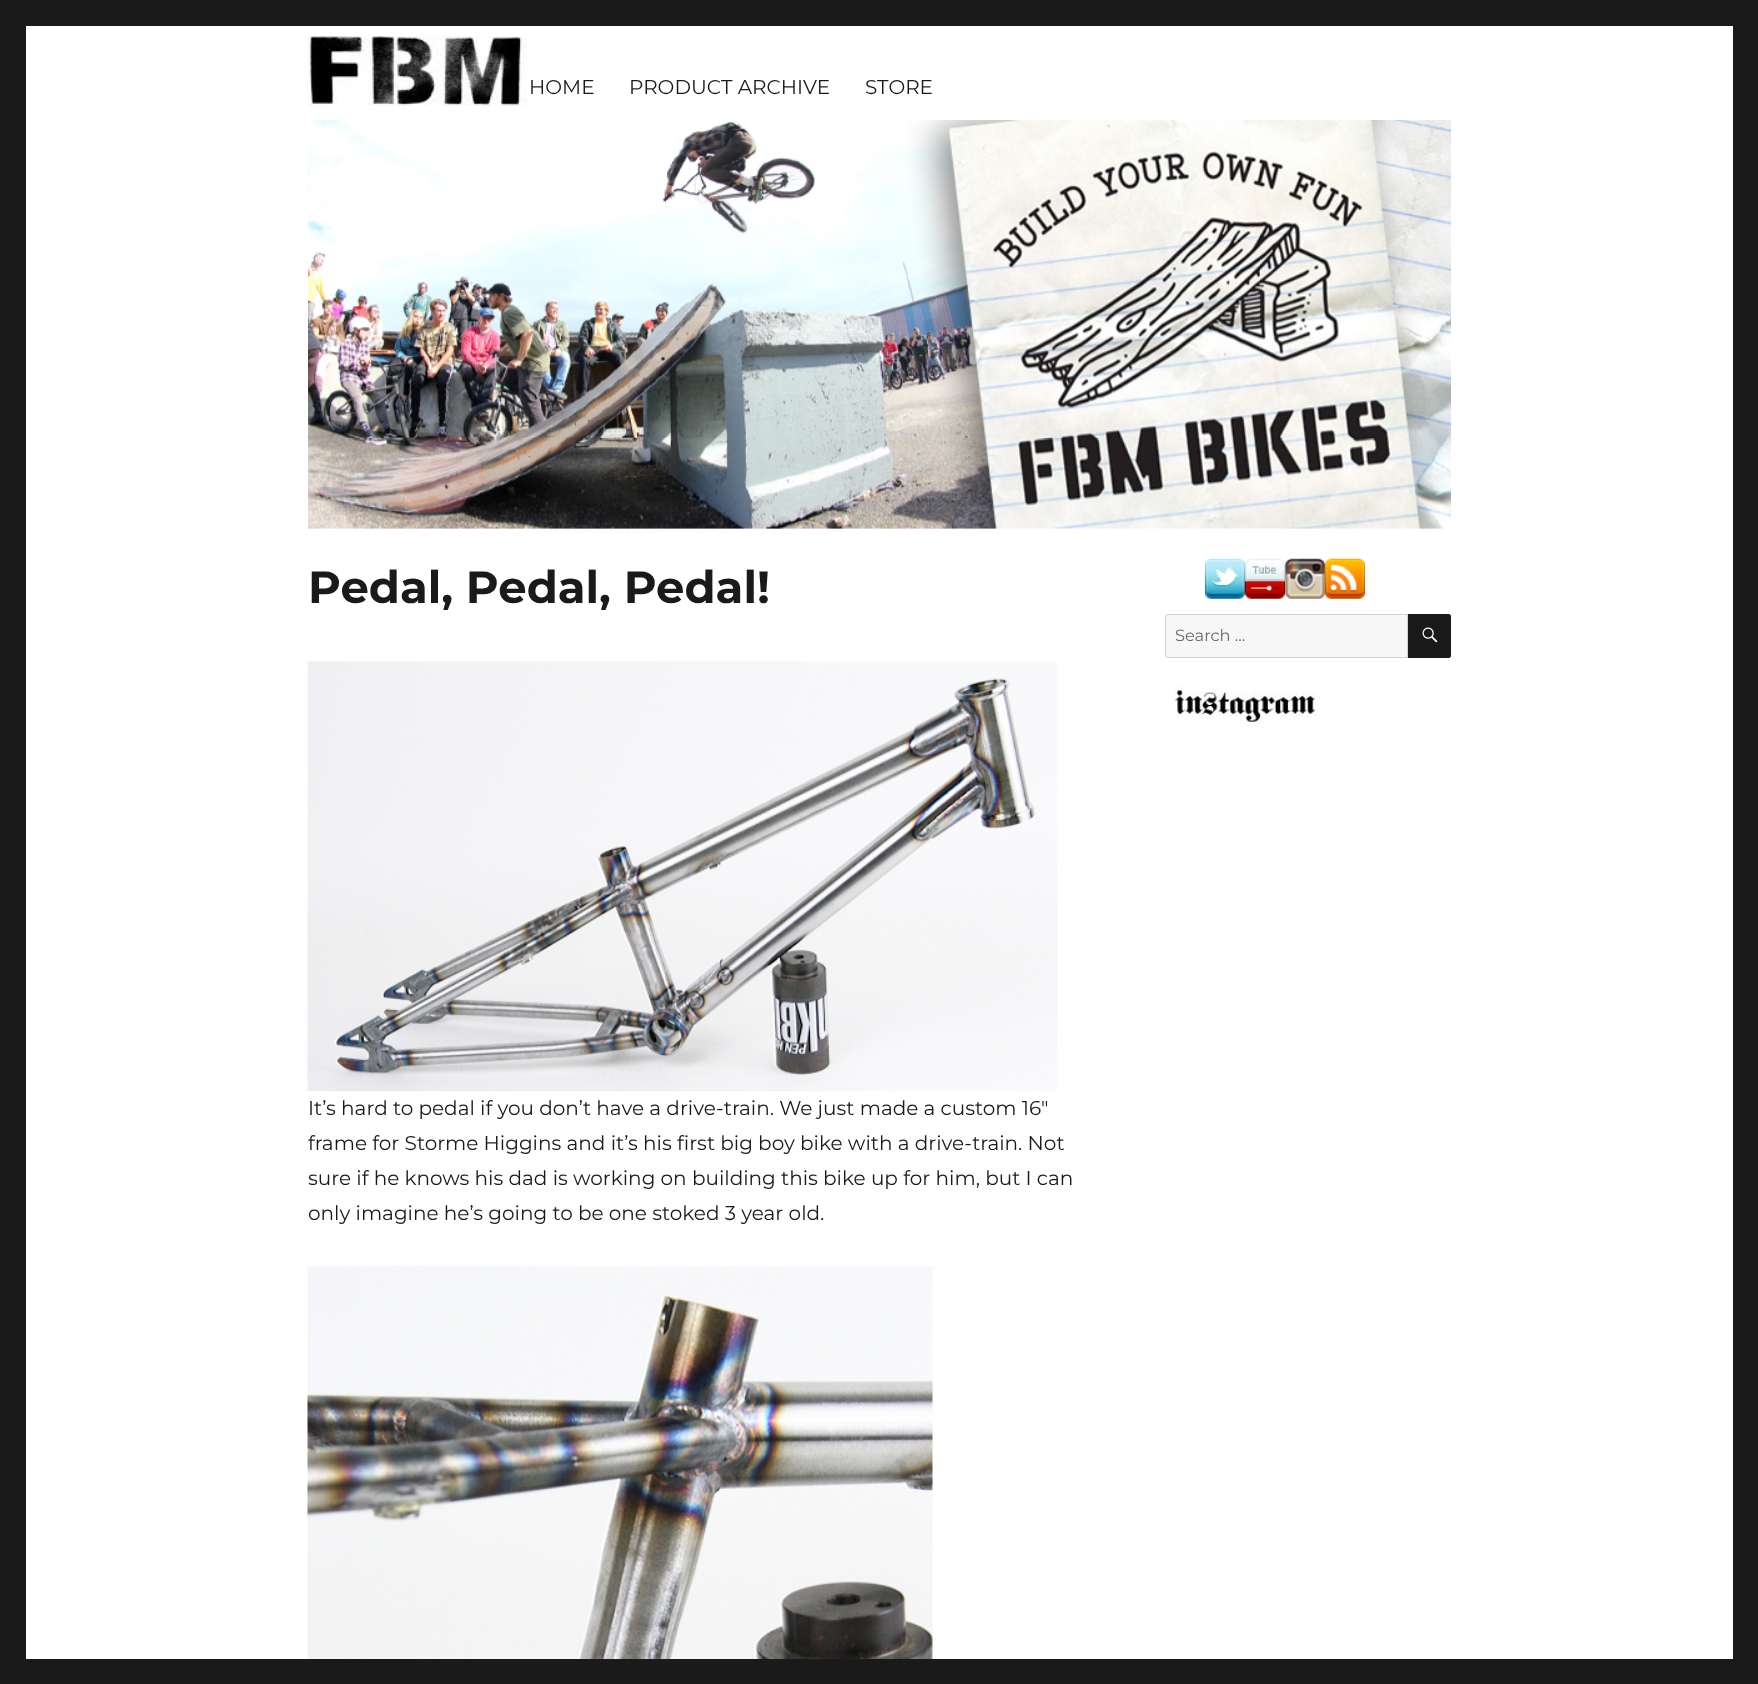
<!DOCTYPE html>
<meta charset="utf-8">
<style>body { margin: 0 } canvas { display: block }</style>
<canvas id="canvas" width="1758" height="1684"></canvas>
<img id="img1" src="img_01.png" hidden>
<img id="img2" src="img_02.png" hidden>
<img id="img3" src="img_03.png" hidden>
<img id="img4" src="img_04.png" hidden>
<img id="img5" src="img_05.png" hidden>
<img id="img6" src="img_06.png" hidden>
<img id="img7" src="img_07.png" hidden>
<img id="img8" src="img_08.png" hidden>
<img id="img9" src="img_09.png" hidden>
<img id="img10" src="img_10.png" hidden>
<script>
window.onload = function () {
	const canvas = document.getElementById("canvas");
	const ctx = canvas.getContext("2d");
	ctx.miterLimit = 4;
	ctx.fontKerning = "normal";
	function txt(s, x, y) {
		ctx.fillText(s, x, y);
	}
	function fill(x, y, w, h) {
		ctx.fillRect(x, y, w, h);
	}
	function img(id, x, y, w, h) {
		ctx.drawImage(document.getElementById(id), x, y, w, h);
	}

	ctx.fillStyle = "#1A1A1A";
	fill(0, 0, 1758, 1684);
	ctx.fillStyle = "#FFFFFF";
	fill(26, 26, 1707, 1633);
	img("img1", 307, 36, 220, 70);
	img("img2", 308, 120, 1143, 409);
	img("img3", 307, 661, 751, 431);
	img("img4", 307, 1266, 626, 393);
	img("img5", 1205, 558, 40, 41);
	img("img6", 1245, 558, 40, 41);
	img("img7", 1285, 558, 40, 41);
	img("img8", 1325, 558, 40, 41);
	ctx.fillStyle = "#F7F7F7";
	ctx.beginPath();
	ctx.roundRect(1165.5, 614.5, 242, 43, [2, 0, 0, 2]);
	ctx.fill();
	ctx.strokeStyle = "#D1D1D1";
	ctx.stroke();
	ctx.fillStyle = "#1A1A1A";
	ctx.beginPath();
	ctx.roundRect(1408, 614, 43, 44, [0, 2.5, 2.5, 0]);
	ctx.fill();
	img("img9", 1422, 627, 16, 16);
	img("img10", 1175, 684, 142, 43);
	ctx.font = "100 20px Montserrat";
	txt("HOME", 529, 94);
	txt("PRODUCT ARCHIVE", 629, 94);
	txt("STORE", 865, 94);
	ctx.font = "100 45px 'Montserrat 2'";
	txt("Pedal, Pedal, Pedal!", 308, 603);
	ctx.font = "100 20px Montserrat";
	txt("It’s hard to pedal if you don’t have a drive-train. We just made a custom 16″", 308, 1115);
	txt("frame for Storme Higgins and it’s his first big boy bike with a drive-train. Not", 308, 1150);
	txt("sure if he knows his dad is working on building this bike up for him, but I can", 308, 1185);
	txt("only imagine he’s going to be one stoked 3 year old.", 308, 1220);
	ctx.font = "100 16.25px Montserrat";
	ctx.fillStyle = "#686868";
	txt("Search …", 1175, 641);
};
</script>
